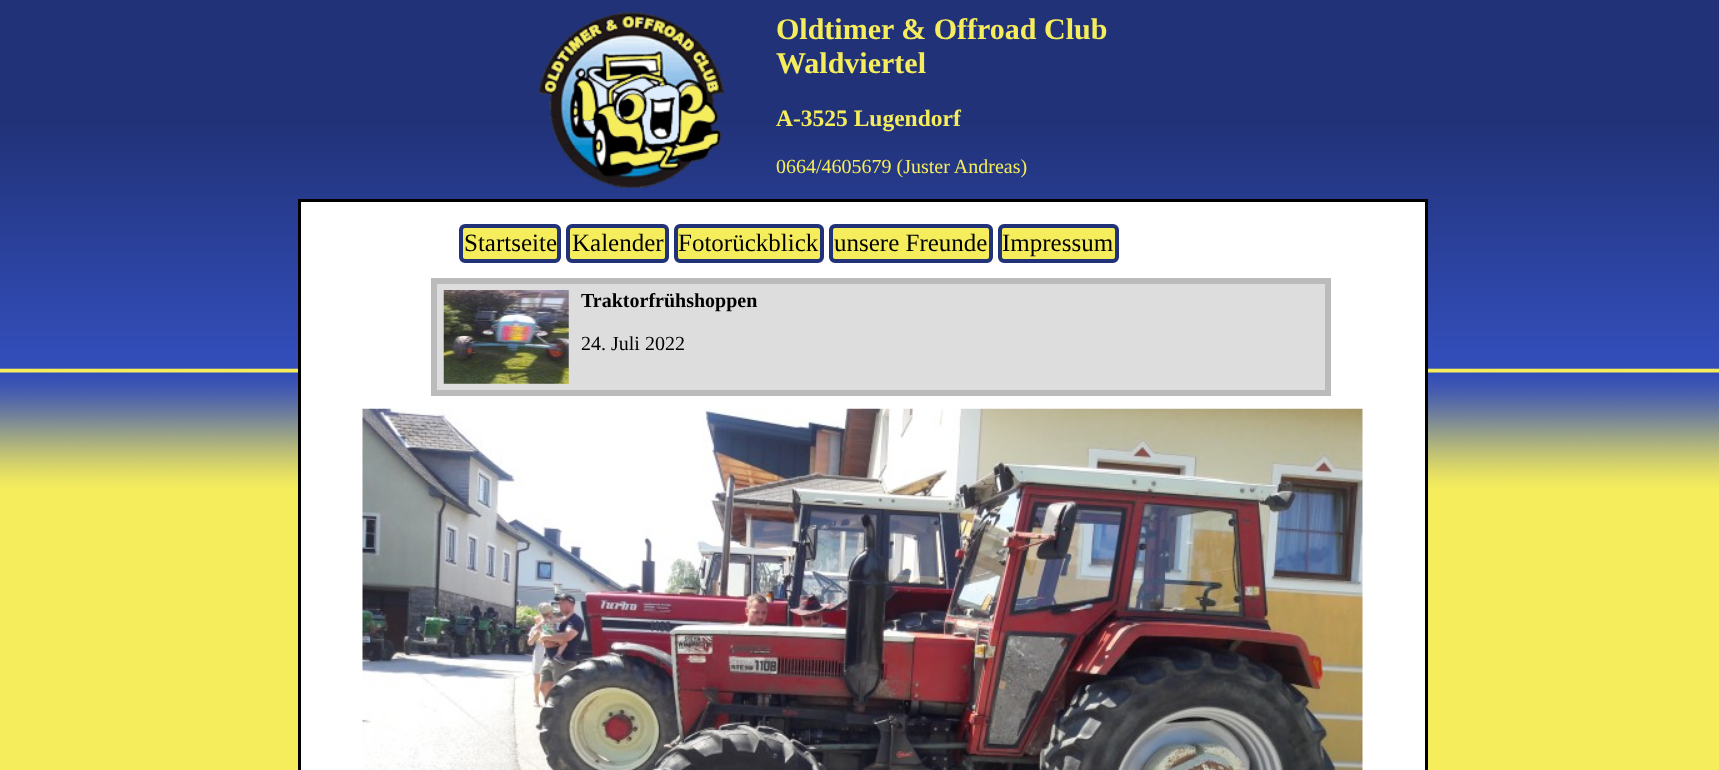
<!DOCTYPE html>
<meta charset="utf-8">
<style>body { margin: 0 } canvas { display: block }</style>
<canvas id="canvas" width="1719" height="770"></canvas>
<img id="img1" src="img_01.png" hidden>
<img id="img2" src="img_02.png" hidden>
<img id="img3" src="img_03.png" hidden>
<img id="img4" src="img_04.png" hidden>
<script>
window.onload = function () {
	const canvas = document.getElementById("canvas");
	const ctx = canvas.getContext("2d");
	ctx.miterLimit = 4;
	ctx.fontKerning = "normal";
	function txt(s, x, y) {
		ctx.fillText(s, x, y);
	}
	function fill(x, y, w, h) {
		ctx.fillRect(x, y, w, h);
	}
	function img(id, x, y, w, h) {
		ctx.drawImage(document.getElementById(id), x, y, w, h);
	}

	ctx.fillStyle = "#FFFFFF";
	fill(0, 0, 1719, 770);
	img("img1", 0, 0, 1719, 770);
	img("img2", 538, 12, 186, 176);
	ctx.beginPath();
	ctx.rect(299.5, 200.5, 1127, 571);
	ctx.fill();
	ctx.strokeStyle = "#000000";
	ctx.lineWidth = 3;
	ctx.stroke();
	ctx.fillStyle = "#F5ED5C";
	ctx.beginPath();
	ctx.roundRect(461, 226, 98, 35, 4);
	ctx.fill();
	ctx.strokeStyle = "#213278";
	ctx.lineWidth = 4;
	ctx.stroke();
	ctx.beginPath();
	ctx.roundRect(568, 226, 99, 35, 4);
	ctx.fill();
	ctx.stroke();
	ctx.beginPath();
	ctx.roundRect(676, 226, 146, 35, 4);
	ctx.fill();
	ctx.stroke();
	ctx.beginPath();
	ctx.roundRect(831, 226, 160, 35, 4);
	ctx.fill();
	ctx.stroke();
	ctx.beginPath();
	ctx.roundRect(1000, 226, 117, 35, 4);
	ctx.fill();
	ctx.stroke();
	ctx.fillStyle = "#DDDDDD";
	ctx.beginPath();
	ctx.rect(434, 281, 894, 112);
	ctx.fill();
	ctx.strokeStyle = "#BBBBBB";
	ctx.lineWidth = 6;
	ctx.stroke();
	img("img3", 443, 290, 126, 94);
	img("img4", 362, 408, 1001, 362);
	ctx.font = "bold 30px Liberation Serif";
	ctx.fillStyle = "#F5ED5C";
	txt("Oldtimer & Offroad Club", 776, 39);
	txt("Waldviertel", 776, 73);
	ctx.font = "bold 23.5px Liberation Serif";
	txt("A-3525 Lugendorf", 776, 126);
	ctx.font = "20px Liberation Serif";
	txt("0664/4605679 (Juster Andreas)", 776, 173);
	ctx.font = "25px Liberation Serif";
	ctx.fillStyle = "#000000";
	txt("Startseite", 464, 251);
	txt("Kalender", 572, 251);
	txt("Fotorückblick", 678, 251);
	txt("unsere Freunde", 834, 251);
	txt("Impressum", 1002, 251);
	ctx.font = "bold 20px Liberation Serif";
	txt("Traktorfrühshoppen", 581, 307);
	ctx.font = "20px Liberation Serif";
	txt("24. Juli 2022", 581, 350);
};
</script>
